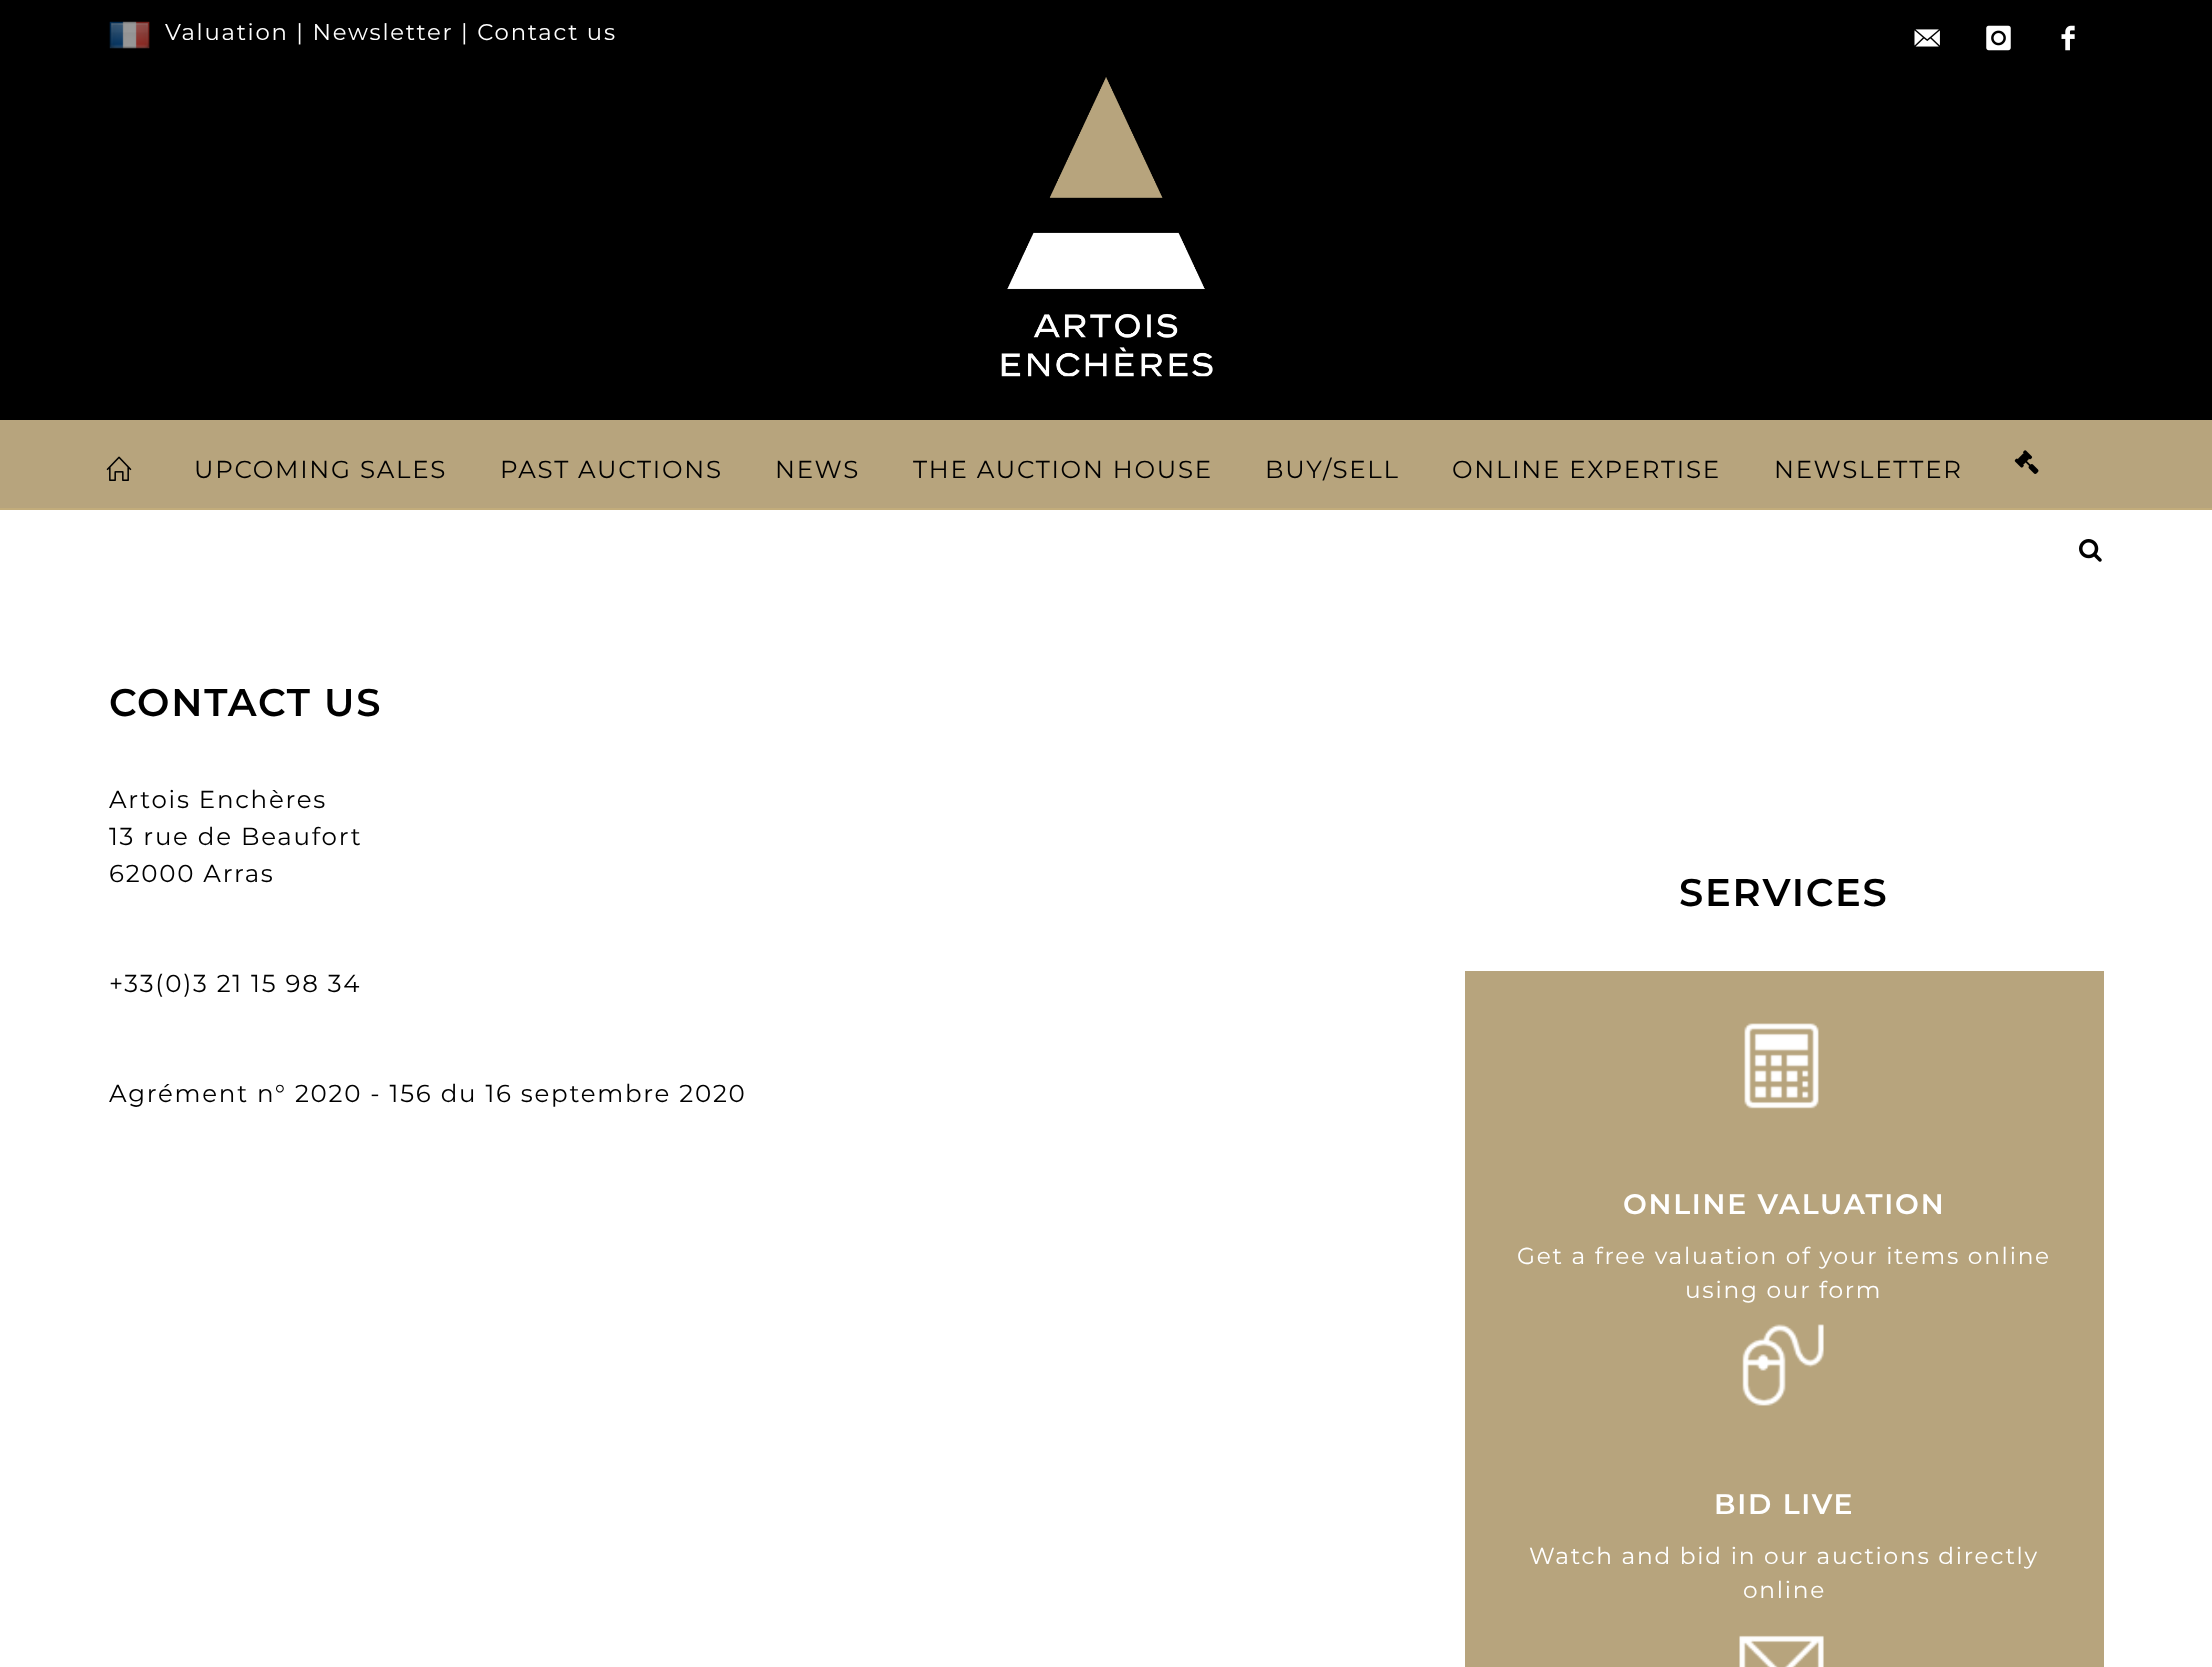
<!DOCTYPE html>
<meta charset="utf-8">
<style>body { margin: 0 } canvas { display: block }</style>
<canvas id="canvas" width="2212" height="1667"></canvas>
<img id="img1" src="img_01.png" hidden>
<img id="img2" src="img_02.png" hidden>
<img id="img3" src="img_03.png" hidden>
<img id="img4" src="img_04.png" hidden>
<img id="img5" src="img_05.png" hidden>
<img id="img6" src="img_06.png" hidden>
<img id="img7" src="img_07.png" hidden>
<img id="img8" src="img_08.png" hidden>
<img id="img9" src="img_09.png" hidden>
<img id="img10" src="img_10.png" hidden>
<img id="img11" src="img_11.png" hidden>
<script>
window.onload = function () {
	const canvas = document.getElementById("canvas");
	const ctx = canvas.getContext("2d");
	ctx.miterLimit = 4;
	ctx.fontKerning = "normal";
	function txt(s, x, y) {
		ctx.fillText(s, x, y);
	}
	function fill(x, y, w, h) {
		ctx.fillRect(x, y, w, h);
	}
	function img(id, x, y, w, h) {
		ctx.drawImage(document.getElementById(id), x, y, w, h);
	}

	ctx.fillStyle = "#FFFFFF";
	fill(0, 0, 2212, 1667);
	ctx.fillStyle = "#000000";
	fill(0, 0, 2212, 420);
	ctx.fillStyle = "#C2AC7B";
	fill(0, 508, 2212, 2);
	img("img1", 109, 21, 41, 28);
	img("img2", 1914, 29, 26, 18);
	img("img3", 1986, 25, 25, 26);
	img("img4", 2061, 25, 14, 26);
	img("img5", 1001, 77, 212, 300);
	ctx.fillStyle = "#B7A47D";
	fill(0, 420, 2212, 88);
	img("img6", 106, 456, 26, 25);
	img("img7", 2014, 450, 25, 24);
	img("img8", 2079, 539, 23, 23);
	fill(1465, 971, 639, 696);
	img("img9", 1744, 1023, 75, 86);
	img("img10", 1742, 1324, 82, 82);
	img("img11", 1739, 1635, 85, 32);
	ctx.letterSpacing = "1.75px";
	ctx.font = "100 22.75px Montserrat";
	ctx.fillStyle = "#FFFFFF";
	txt("Valuation | Newsletter | Contact us", 165, 40);
	ctx.font = "100 24.5px Montserrat";
	ctx.fillStyle = "#000000";
	txt("UPCOMING SALES", 194, 478);
	txt("PAST AUCTIONS", 500, 478);
	txt("NEWS", 775, 478);
	txt("THE AUCTION HOUSE", 913, 478);
	txt("BUY/SELL", 1265, 478);
	txt("ONLINE EXPERTISE", 1452, 478);
	txt("NEWSLETTER", 1774, 478);
	ctx.font = "100 38.5px 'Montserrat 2'";
	txt("CONTACT US", 109, 716);
	ctx.font = "100 24.5px Montserrat";
	txt("Artois Enchères", 109, 808);
	txt("13 rue de Beaufort", 109, 845);
	txt("62000 Arras", 109, 882);
	txt("+33(0)3 21 15 98 34", 109, 992);
	txt("Agrément n° 2020 - 156 du 16 septembre 2020", 109, 1102);
	ctx.font = "100 38.5px 'Montserrat 2'";
	txt("SERVICES", 1679, 906);
	ctx.font = "100 28.25px 'Montserrat 2'";
	ctx.fillStyle = "#FFFFFF";
	txt("ONLINE VALUATION", 1623, 1214);
	ctx.font = "100 23.25px Montserrat";
	txt("Get a free valuation of your items online", 1517, 1264);
	txt("using our form", 1685, 1298);
	ctx.font = "100 28.25px 'Montserrat 2'";
	txt("BID LIVE", 1714, 1514);
	ctx.font = "100 23.25px Montserrat";
	txt("Watch and bid in our auctions directly", 1529, 1564);
	txt("online", 1743, 1598);
};
</script>
